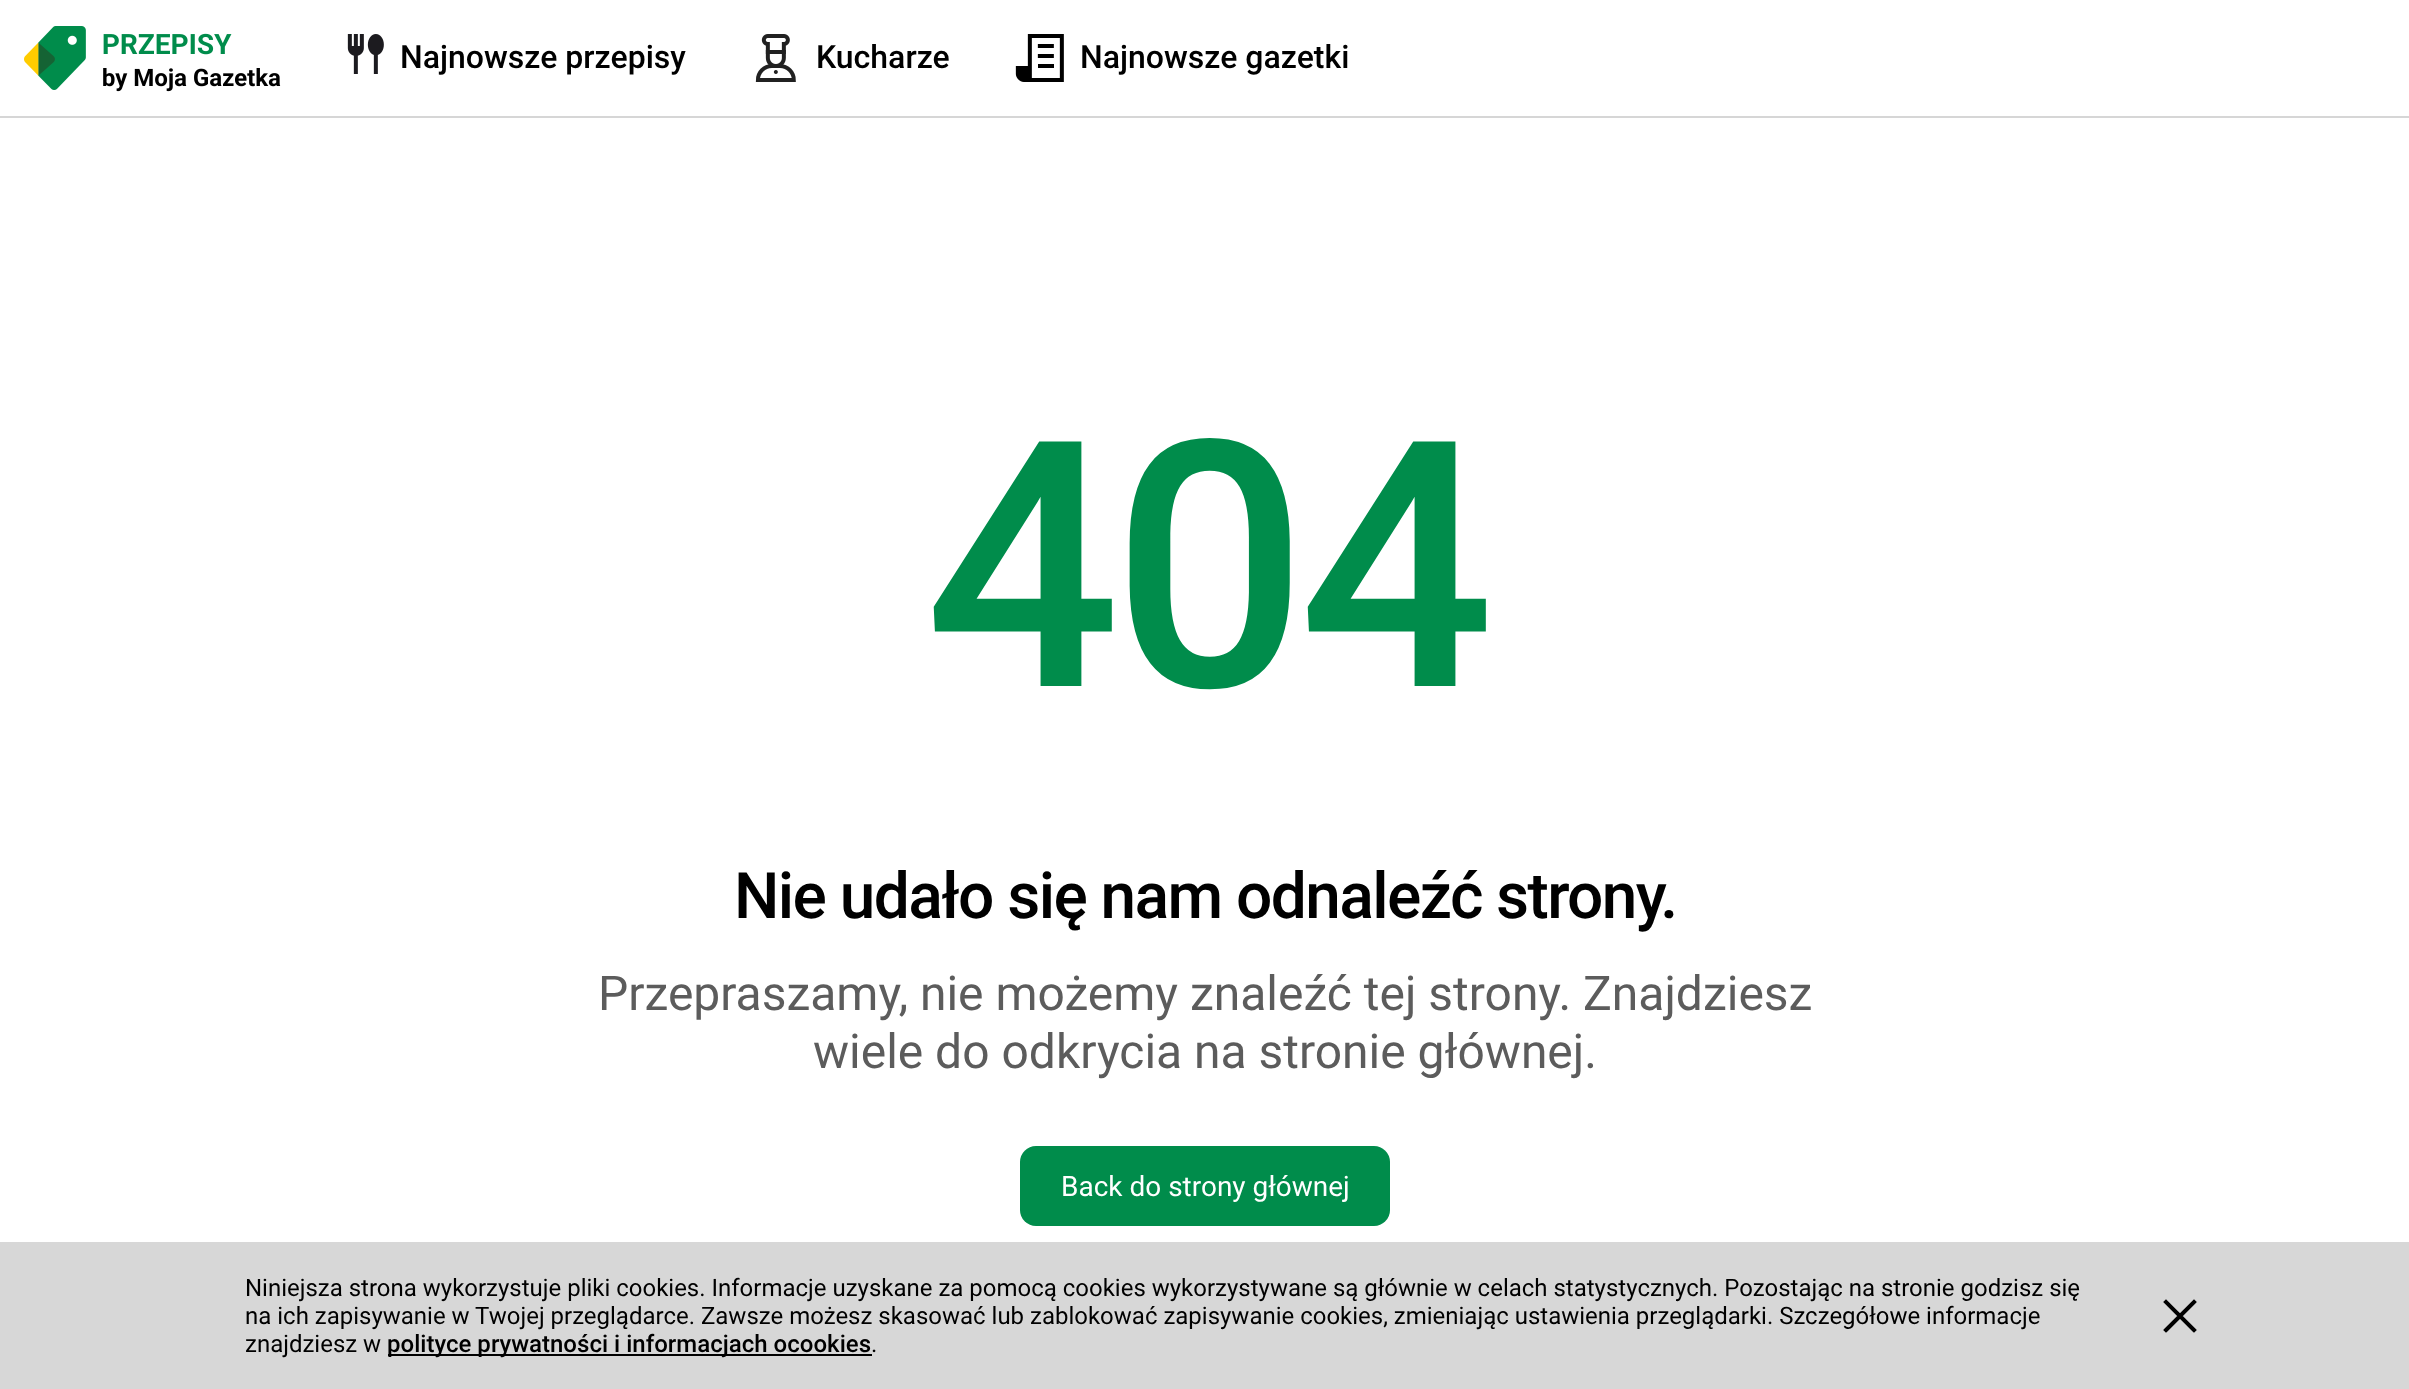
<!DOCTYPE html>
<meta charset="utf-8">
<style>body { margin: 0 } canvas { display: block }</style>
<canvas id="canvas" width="2409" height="1389"></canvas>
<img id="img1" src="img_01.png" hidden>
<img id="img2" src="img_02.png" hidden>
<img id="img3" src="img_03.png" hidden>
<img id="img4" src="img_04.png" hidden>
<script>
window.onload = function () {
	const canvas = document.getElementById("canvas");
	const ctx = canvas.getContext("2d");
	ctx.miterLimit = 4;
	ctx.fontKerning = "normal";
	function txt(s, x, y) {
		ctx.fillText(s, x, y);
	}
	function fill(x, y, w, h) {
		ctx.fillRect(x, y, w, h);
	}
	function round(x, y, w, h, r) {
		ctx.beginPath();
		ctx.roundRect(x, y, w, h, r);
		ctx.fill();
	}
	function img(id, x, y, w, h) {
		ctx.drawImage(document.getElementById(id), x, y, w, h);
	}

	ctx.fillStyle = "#FFFFFF";
	fill(0, 0, 2409, 1389);
	ctx.fillStyle = "#D6D6D6";
	fill(0, 116, 2409, 2);
	img("img1", 24, 26, 257, 66);
	img("img2", 347, 34, 37, 40);
	img("img3", 755, 34, 41, 48);
	img("img4", 1015, 34, 49, 48);
	ctx.fillStyle = "#008C4B";
	round(1020, 1146, 370, 80, 16);
	ctx.fillStyle = "#D7D7D7";
	fill(0, 1242, 2409, 147);
	ctx.fillStyle = "#000000";
	fill(388, 1354, 484, 2);
	ctx.beginPath();
	ctx.moveTo(2194, 1302);
	ctx.lineTo(2166, 1330);
	ctx.moveTo(2194, 1330);
	ctx.lineTo(2166, 1302);
	ctx.strokeStyle = "#000000";
	ctx.lineWidth = 4;
	ctx.lineCap = "square";
	ctx.stroke();
	ctx.font = "500 32px Roboto";
	txt("Najnowsze przepisy", 400, 68);
	txt("Kucharze", 816, 68);
	txt("Najnowsze gazetki", 1080, 68);
	ctx.letterSpacing = "-8.5px";
	ctx.font = "500 344px Roboto";
	ctx.fillStyle = "#008C4B";
	txt("404", 925, 686);
	ctx.letterSpacing = "-1.6px";
	ctx.font = "500 64px Roboto";
	ctx.fillStyle = "#000000";
	txt("Nie udało się nam odnaleźć strony.", 734, 918);
	ctx.letterSpacing = "0px";
	ctx.font = "48px Roboto";
	ctx.fillStyle = "#5C5C5C";
	txt("Przepraszamy, nie możemy znaleźć tej strony. Znajdziesz", 598, 1010);
	txt("wiele do odkrycia na stronie głównej.", 813, 1068);
	ctx.font = "28px Roboto";
	ctx.fillStyle = "#FFFFFF";
	txt("Back do strony głównej", 1061, 1196);
	ctx.font = "24px Roboto";
	ctx.fillStyle = "#000000";
	txt("Niniejsza strona wykorzystuje pliki cookies. Informacje uzyskane za pomocą cookies wykorzystywane są głównie w celach statystycznych. Pozostając na stronie godzisz się", 245, 1296);
	txt("na ich zapisywanie w Twojej przeglądarce. Zawsze możesz skasować lub zablokować zapisywanie cookies, zmieniając ustawienia przeglądarki. Szczegółowe informacje", 245, 1324);
	txt("znajdziesz w", 245, 1352);
	ctx.font = "500 24px Roboto";
	txt("polityce prywatności i informacjach ocookies", 387, 1352);
	ctx.font = "24px Roboto";
	txt(".", 871, 1352);
};
</script>
